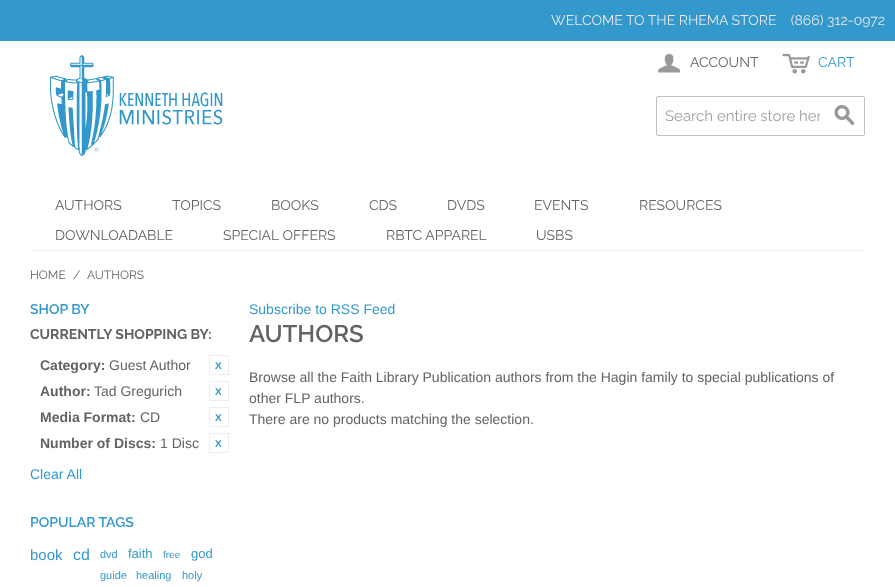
<!DOCTYPE html>
<meta charset="utf-8">
<style>body { margin: 0 } canvas { display: block }</style>
<canvas id="canvas" width="895" height="587"></canvas>
<img id="img1" src="img_01.png" hidden>
<img id="img2" src="img_02.png" hidden>
<img id="img3" src="img_03.png" hidden>
<img id="img4" src="img_04.png" hidden>
<script>
window.onload = function () {
	const canvas = document.getElementById("canvas");
	const ctx = canvas.getContext("2d");
	ctx.miterLimit = 4;
	ctx.fontKerning = "normal";
	function txt(s, x, y) {
		ctx.fillText(s, x, y);
	}
	function fill(x, y, w, h) {
		ctx.fillRect(x, y, w, h);
	}
	function img(id, x, y, w, h) {
		ctx.drawImage(document.getElementById(id), x, y, w, h);
	}

	ctx.fillStyle = "#FFFFFF";
	fill(0, 0, 895, 587);
	ctx.fillStyle = "#3399CC";
	fill(0, 0, 895, 41);
	img("img1", 50, 55, 173, 101);
	img("img2", 658, 53, 23, 20);
	img("img3", 782, 53, 28, 21);
	ctx.beginPath();
	ctx.roundRect(656.5, 96.5, 208, 39, 1.5);
	ctx.strokeStyle = "#C0C0C0";
	ctx.stroke();
	img("img4", 834, 104, 21, 22);
	ctx.fillStyle = "#EDEDED";
	fill(30, 250, 835, 1);
	ctx.strokeStyle = "#EDEDED";
	ctx.strokeRect(209.5, 355.5, 19, 19);
	ctx.strokeRect(209.5, 381.5, 19, 19);
	ctx.strokeRect(209.5, 407.5, 19, 19);
	ctx.strokeRect(209.5, 433.5, 19, 19);
	ctx.font = "14px Raleway";
	ctx.fillStyle = "#E6E6E6";
	txt("WELCOME TO THE RHEMA STORE    (866) 312-0972", 551, 25);
	ctx.fillStyle = "#636363";
	txt("ACCOUNT", 690, 67);
	ctx.fillStyle = "#3399CC";
	txt("CART", 818, 67);
	ctx.save();
	ctx.beginPath();
	ctx.rect(665, 107, 155, 18);
	ctx.clip();
	ctx.font = "15px Raleway";
	ctx.fillStyle = "#A0A0A0";
	txt("Search entire store her", 665, 121);
	ctx.restore();
	ctx.fillStyle = "#636363";
	txt("AUTHORS", 55, 210);
	txt("TOPICS", 172, 210);
	txt("BOOKS", 271, 210);
	txt("CDS", 369, 210);
	txt("DVDS", 447, 210);
	txt("EVENTS", 534, 210);
	txt("RESOURCES", 639, 210);
	txt("DOWNLOADABLE", 55, 240);
	txt("SPECIAL OFFERS", 223, 240);
	txt("RBTC APPAREL", 386, 240);
	txt("USBS", 536, 240);
	ctx.font = "12px Raleway";
	txt("HOME", 30, 279);
	txt("/", 73, 279);
	txt("AUTHORS", 87, 279);
	ctx.font = "600 14px Raleway";
	ctx.fillStyle = "#3399CC";
	txt("SHOP BY", 30, 314);
	ctx.font = "bold 14px Raleway";
	ctx.fillStyle = "#636363";
	txt("CURRENTLY SHOPPING BY:", 30, 339);
	ctx.font = "bold 14px Liberation Sans";
	txt("Category:", 40, 370);
	ctx.font = "14px Liberation Sans";
	txt("Guest Author", 109, 370);
	ctx.font = "bold 10px Liberation Sans";
	ctx.fillStyle = "#3399CC";
	txt("X", 215, 369);
	ctx.font = "bold 14px Liberation Sans";
	ctx.fillStyle = "#636363";
	txt("Author:", 40, 396);
	ctx.font = "14px Liberation Sans";
	txt("Tad Gregurich", 94, 396);
	ctx.font = "bold 10px Liberation Sans";
	ctx.fillStyle = "#3399CC";
	txt("X", 215, 395);
	ctx.font = "bold 14px Liberation Sans";
	ctx.fillStyle = "#636363";
	txt("Media Format:", 40, 422);
	ctx.font = "14px Liberation Sans";
	txt("CD", 140, 422);
	ctx.font = "bold 10px Liberation Sans";
	ctx.fillStyle = "#3399CC";
	txt("X", 215, 421);
	ctx.font = "bold 14px Liberation Sans";
	ctx.fillStyle = "#636363";
	txt("Number of Discs:", 40, 448);
	ctx.font = "14px Liberation Sans";
	txt("1 Disc", 160, 448);
	ctx.font = "bold 10px Liberation Sans";
	ctx.fillStyle = "#3399CC";
	txt("X", 215, 447);
	ctx.font = "14px Liberation Sans";
	txt("Clear All", 30, 479);
	txt("Subscribe to RSS Feed", 249, 314);
	ctx.font = "600 24px Raleway";
	ctx.fillStyle = "#636363";
	txt("AUTHORS", 249, 342);
	ctx.font = "14px Liberation Sans";
	txt("Browse all the Faith Library Publication authors from the Hagin family to special publications of", 249, 382);
	txt("other FLP authors.", 249, 403);
	txt("There are no products matching the selection.", 249, 424);
	ctx.font = "600 14px Raleway";
	ctx.fillStyle = "#3399CC";
	txt("POPULAR TAGS", 30, 527);
	ctx.font = "15px Liberation Sans";
	txt("book", 30, 560);
	ctx.font = "16px Liberation Sans";
	txt("cd", 73, 560);
	ctx.font = "11px Liberation Sans";
	txt("dvd", 100, 558);
	ctx.font = "13px Liberation Sans";
	txt("faith", 128, 558);
	ctx.font = "10px Liberation Sans";
	txt("free", 163, 558);
	ctx.font = "13px Liberation Sans";
	txt("god", 191, 558);
	ctx.font = "11px Liberation Sans";
	txt("guide", 100, 579);
	txt("healing", 136, 579);
	txt("holy", 182, 579);
};
</script>
